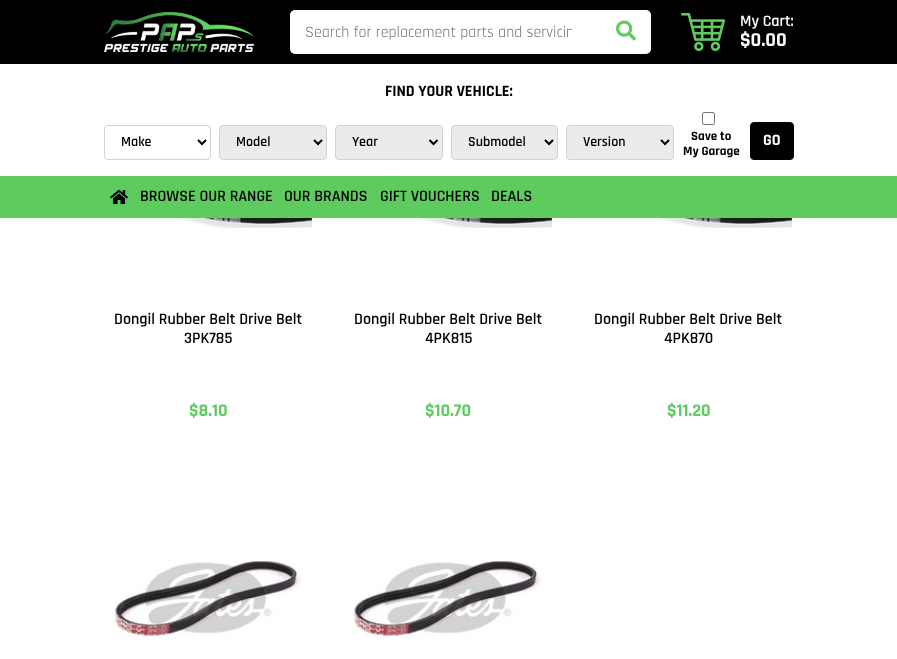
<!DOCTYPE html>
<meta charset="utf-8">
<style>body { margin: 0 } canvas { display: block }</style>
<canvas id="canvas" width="897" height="659"></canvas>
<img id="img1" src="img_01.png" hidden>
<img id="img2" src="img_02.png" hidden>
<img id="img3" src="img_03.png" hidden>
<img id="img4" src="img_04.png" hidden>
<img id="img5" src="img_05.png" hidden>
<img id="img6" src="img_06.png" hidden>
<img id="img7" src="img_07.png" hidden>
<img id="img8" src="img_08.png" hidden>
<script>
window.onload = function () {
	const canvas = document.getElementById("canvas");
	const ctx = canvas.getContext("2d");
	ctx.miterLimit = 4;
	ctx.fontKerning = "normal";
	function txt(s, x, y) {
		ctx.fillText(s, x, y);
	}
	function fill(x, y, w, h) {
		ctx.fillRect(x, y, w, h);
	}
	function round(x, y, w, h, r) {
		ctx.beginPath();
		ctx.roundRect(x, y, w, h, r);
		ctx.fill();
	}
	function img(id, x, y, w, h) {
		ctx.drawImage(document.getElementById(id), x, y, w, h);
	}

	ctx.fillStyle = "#FFFFFF";
	fill(0, 0, 897, 659);
	ctx.fillStyle = "#000000";
	fill(0, 0, 897, 64);
	img("img1", 103, 12, 151, 40);
	ctx.fillStyle = "#FFFFFF";
	round(290, 10, 361, 44, 5);
	img("img2", 616, 20, 20, 21);
	img("img3", 681, 13, 44, 38);
	ctx.beginPath();
	ctx.roundRect(104.5, 125.5, 106, 34, 3.5);
	ctx.strokeStyle = "#CED4DA";
	ctx.stroke();
	ctx.beginPath();
	ctx.moveTo(198, 140);
	ctx.lineTo(202, 144);
	ctx.lineTo(206, 140);
	ctx.strokeStyle = "#000000";
	ctx.lineWidth = 2;
	ctx.stroke();
	ctx.fillStyle = "#EBEBEB";
	ctx.beginPath();
	ctx.roundRect(219.5, 125.5, 107, 34, 3.5);
	ctx.fill();
	ctx.strokeStyle = "#CED4DA";
	ctx.lineWidth = 1;
	ctx.stroke();
	ctx.beginPath();
	ctx.moveTo(314, 140);
	ctx.lineTo(318, 144);
	ctx.lineTo(322, 140);
	ctx.strokeStyle = "#000000";
	ctx.lineWidth = 2;
	ctx.stroke();
	ctx.beginPath();
	ctx.roundRect(335.5, 125.5, 107, 34, 3.5);
	ctx.fill();
	ctx.strokeStyle = "#CED4DA";
	ctx.lineWidth = 1;
	ctx.stroke();
	ctx.beginPath();
	ctx.moveTo(429.5, 140);
	ctx.lineTo(433.5, 144);
	ctx.lineTo(437.5, 140);
	ctx.strokeStyle = "#000000";
	ctx.lineWidth = 2;
	ctx.stroke();
	ctx.beginPath();
	ctx.roundRect(451.5, 125.5, 106, 34, 3.5);
	ctx.fill();
	ctx.strokeStyle = "#CED4DA";
	ctx.lineWidth = 1;
	ctx.stroke();
	ctx.beginPath();
	ctx.moveTo(545, 140);
	ctx.lineTo(549, 144);
	ctx.lineTo(553, 140);
	ctx.strokeStyle = "#000000";
	ctx.lineWidth = 2;
	ctx.stroke();
	ctx.beginPath();
	ctx.roundRect(566.5, 125.5, 107, 34, 3.5);
	ctx.fill();
	ctx.strokeStyle = "#CED4DA";
	ctx.lineWidth = 1;
	ctx.stroke();
	ctx.beginPath();
	ctx.moveTo(661, 140);
	ctx.lineTo(665, 144);
	ctx.lineTo(669, 140);
	ctx.strokeStyle = "#000000";
	ctx.lineWidth = 2;
	ctx.stroke();
	ctx.beginPath();
	ctx.roundRect(702.5, 112.5, 12, 12, 1.5);
	ctx.strokeStyle = "#767676";
	ctx.lineWidth = 1;
	ctx.stroke();
	ctx.fillStyle = "#000000";
	ctx.beginPath();
	ctx.roundRect(750.5, 122.5, 43, 37, 3.5);
	ctx.fill();
	ctx.strokeStyle = "#000000";
	ctx.stroke();
	ctx.fillStyle = "#5ECB5E";
	fill(0, 176, 897, 42);
	img("img4", 110, 190, 18, 14);
	img("img5", 115, 218, 197, 10);
	img("img6", 354, 218, 198, 10);
	img("img6", 594, 218, 198, 10);
	img("img7", 115, 561, 187, 76);
	img("img8", 354, 561, 188, 76);
	ctx.save();
	ctx.beginPath();
	ctx.rect(305, 22, 267, 21);
	ctx.clip();
	ctx.font = "16px Rajdhani";
	ctx.fillStyle = "#6C757D";
	txt("Search for replacement parts and servicin", 305, 37);
	ctx.restore();
	ctx.font = "600 16px Rajdhani";
	ctx.fillStyle = "#FFFFFF";
	txt("My Cart:", 740, 26);
	ctx.font = "bold 20px Rajdhani";
	txt("$0.00", 740, 46);
	ctx.font = "bold 16px Rajdhani";
	ctx.fillStyle = "#000000";
	txt("FIND YOUR VEHICLE:", 385, 96);
	ctx.font = "600 14px Rajdhani";
	txt("Make", 121, 146);
	txt("Model", 236, 146);
	txt("Year", 352, 146);
	txt("Submodel", 468, 146);
	txt("Version", 583, 146);
	ctx.font = "bold 13px Rajdhani";
	txt("Save to", 691, 140);
	txt("My Garage", 683, 155);
	ctx.font = "bold 16px Rajdhani";
	ctx.fillStyle = "#FFFFFF";
	txt("GO", 763, 145);
	ctx.font = "600 16px Rajdhani";
	ctx.fillStyle = "#000000";
	txt("BROWSE OUR RANGE", 140, 201);
	txt("OUR BRANDS", 284, 201);
	txt("GIFT VOUCHERS", 380, 201);
	txt("DEALS", 491, 201);
	txt("Dongil Rubber Belt Drive Belt", 114, 324);
	txt("3PK785", 184, 343);
	ctx.font = "bold 18px Rajdhani";
	ctx.fillStyle = "#5ECB5E";
	txt("$8.10", 189, 416);
	ctx.font = "600 16px Rajdhani";
	ctx.fillStyle = "#000000";
	txt("Dongil Rubber Belt Drive Belt", 354, 324);
	txt("4PK815", 425, 343);
	ctx.font = "bold 18px Rajdhani";
	ctx.fillStyle = "#5ECB5E";
	txt("$10.70", 425, 416);
	ctx.font = "600 16px Rajdhani";
	ctx.fillStyle = "#000000";
	txt("Dongil Rubber Belt Drive Belt", 594, 324);
	txt("4PK870", 664, 343);
	ctx.font = "bold 18px Rajdhani";
	ctx.fillStyle = "#5ECB5E";
	txt("$11.20", 667, 416);
};
</script>
